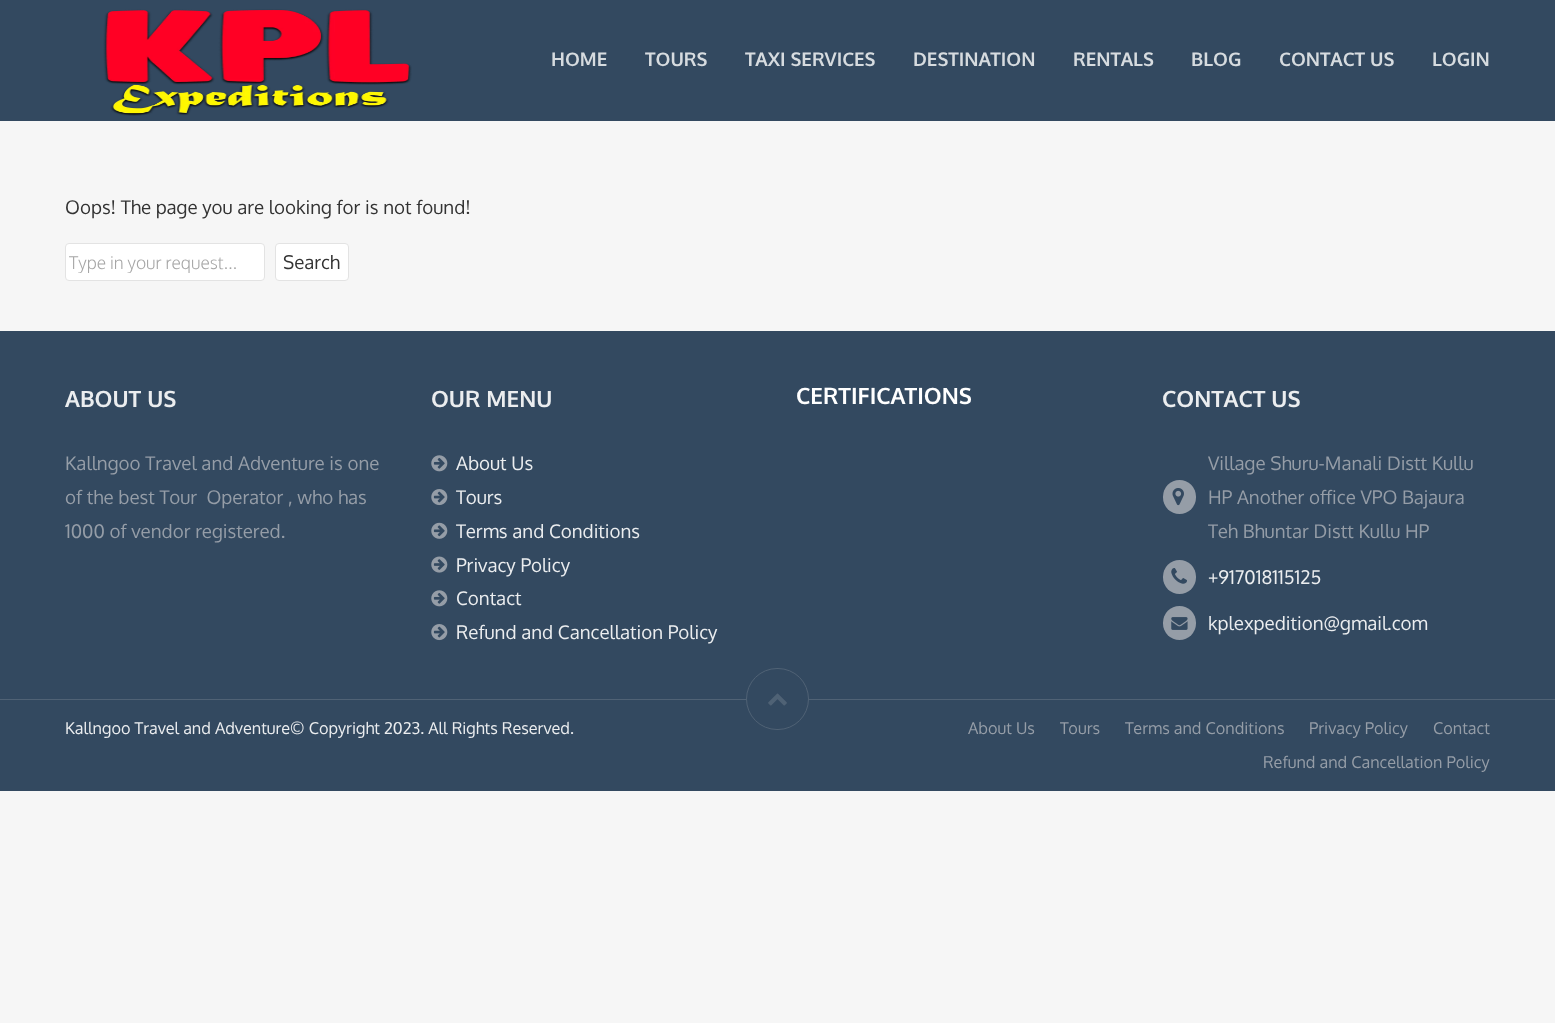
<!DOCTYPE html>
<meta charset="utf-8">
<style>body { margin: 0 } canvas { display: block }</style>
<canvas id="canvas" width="1555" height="1023"></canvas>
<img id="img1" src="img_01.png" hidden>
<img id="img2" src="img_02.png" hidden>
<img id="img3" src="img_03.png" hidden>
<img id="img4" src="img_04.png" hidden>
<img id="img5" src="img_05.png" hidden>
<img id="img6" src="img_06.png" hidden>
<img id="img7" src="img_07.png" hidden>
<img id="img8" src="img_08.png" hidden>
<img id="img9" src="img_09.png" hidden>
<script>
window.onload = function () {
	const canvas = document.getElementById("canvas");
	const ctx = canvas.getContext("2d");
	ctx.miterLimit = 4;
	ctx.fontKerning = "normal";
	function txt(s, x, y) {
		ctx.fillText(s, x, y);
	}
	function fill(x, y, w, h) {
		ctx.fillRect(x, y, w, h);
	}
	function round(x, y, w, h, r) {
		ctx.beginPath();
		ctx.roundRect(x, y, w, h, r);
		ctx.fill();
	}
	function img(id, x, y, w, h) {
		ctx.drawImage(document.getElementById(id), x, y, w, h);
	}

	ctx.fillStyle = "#F6F6F6";
	fill(0, 0, 1555, 1023);
	ctx.fillStyle = "#334960";
	fill(0, 0, 1555, 121);
	img("img1", 103, 9, 309, 107);
	ctx.fillStyle = "#FFFFFF";
	ctx.beginPath();
	ctx.roundRect(65.5, 243.5, 199, 37, 3.5);
	ctx.fill();
	ctx.strokeStyle = "#E3E3E3";
	ctx.stroke();
	ctx.beginPath();
	ctx.roundRect(275.5, 243.5, 73, 37, 3.5);
	ctx.fill();
	ctx.stroke();
	ctx.fillStyle = "#334960";
	fill(0, 331, 1555, 460);
	img("img2", 431, 455, 17, 17);
	img("img3", 431, 489, 17, 17);
	img("img4", 431, 522, 17, 17);
	img("img5", 431, 556, 17, 17);
	img("img2", 431, 590, 17, 17);
	img("img3", 431, 624, 17, 17);
	ctx.fillStyle = "#959DA7";
	round(1163, 480, 33, 34, 16.5);
	img("img6", 1172, 488, 12, 18);
	round(1163, 560, 33, 34, 16.5);
	img("img7", 1171, 568, 16, 16);
	round(1163, 606, 33, 34, 16.5);
	img("img8", 1171, 617, 17, 13);
	ctx.fillStyle = "#506275";
	fill(0, 699, 1555, 1);
	ctx.fillStyle = "#334960";
	ctx.beginPath();
	ctx.roundRect(746.5, 668.5, 62, 61, 30.5);
	ctx.fill();
	ctx.strokeStyle = "#506275";
	ctx.stroke();
	img("img9", 768, 693, 19, 13);
	ctx.font = "bold 18.75px Oxygen";
	ctx.fillStyle = "#D6DBDF";
	txt("HOME", 551, 66);
	txt("TOURS", 645, 66);
	txt("TAXI SERVICES", 745, 66);
	txt("DESTINATION", 913, 66);
	txt("RENTALS", 1073, 66);
	txt("BLOG", 1191, 66);
	txt("CONTACT US", 1279, 66);
	txt("LOGIN", 1432, 66);
	ctx.font = "18.75px Oxygen";
	ctx.fillStyle = "#333333";
	txt("Oops! The page you are looking for is not found!", 65, 214);
	ctx.save();
	ctx.beginPath();
	ctx.rect(69, 251, 175, 22);
	ctx.clip();
	ctx.font = "300 17.5px Oxygen";
	ctx.fillStyle = "#A6A6A6";
	txt("Type in your request...", 69, 269);
	ctx.restore();
	txt("Search", 283, 269);
	ctx.font = "bold 22.5px Oxygen";
	ctx.fillStyle = "#EBEDEF";
	txt("ABOUT US", 65, 407);
	ctx.font = "18.75px Oxygen";
	ctx.fillStyle = "#959DA7";
	txt("Kallngoo Travel and Adventure is one", 65, 470);
	txt("of the best Tour  Operator , who has", 65, 504);
	txt("1000 of vendor registered.", 65, 538);
	ctx.font = "bold 22.5px Oxygen";
	ctx.fillStyle = "#EBEDEF";
	txt("OUR MENU", 431, 407);
	ctx.font = "18.75px Oxygen";
	txt("About Us", 456, 470);
	txt("Tours", 456, 504);
	txt("Terms and Conditions", 456, 538);
	txt("Privacy Policy", 456, 572);
	txt("Contact", 456, 605);
	txt("Refund and Cancellation Policy", 456, 639);
	ctx.font = "bold 22.5px Oxygen";
	ctx.fillStyle = "#FFFFFF";
	txt("CERTIFICATIONS", 796, 404);
	ctx.fillStyle = "#EBEDEF";
	txt("CONTACT US", 1162, 407);
	ctx.font = "18.75px Oxygen";
	ctx.fillStyle = "#959DA7";
	txt("Village Shuru-Manali Distt Kullu", 1208, 470);
	txt("HP Another office VPO Bajaura", 1208, 504);
	txt("Teh Bhuntar Distt Kullu HP", 1208, 538);
	ctx.fillStyle = "#EBEDEF";
	txt("+917018115125", 1208, 584);
	txt("kplexpedition@gmail.com", 1208, 630);
	ctx.font = "16.25px Oxygen";
	txt("Kallngoo Travel and Adventure© Copyright 2023. All Rights Reserved.", 65, 734);
	ctx.fillStyle = "#959DA7";
	txt("About Us", 968, 734);
	txt("Tours", 1060, 734);
	txt("Terms and Conditions", 1125, 734);
	txt("Privacy Policy", 1309, 734);
	txt("Contact", 1433, 734);
	txt("Refund and Cancellation Policy", 1263, 768);
};
</script>
